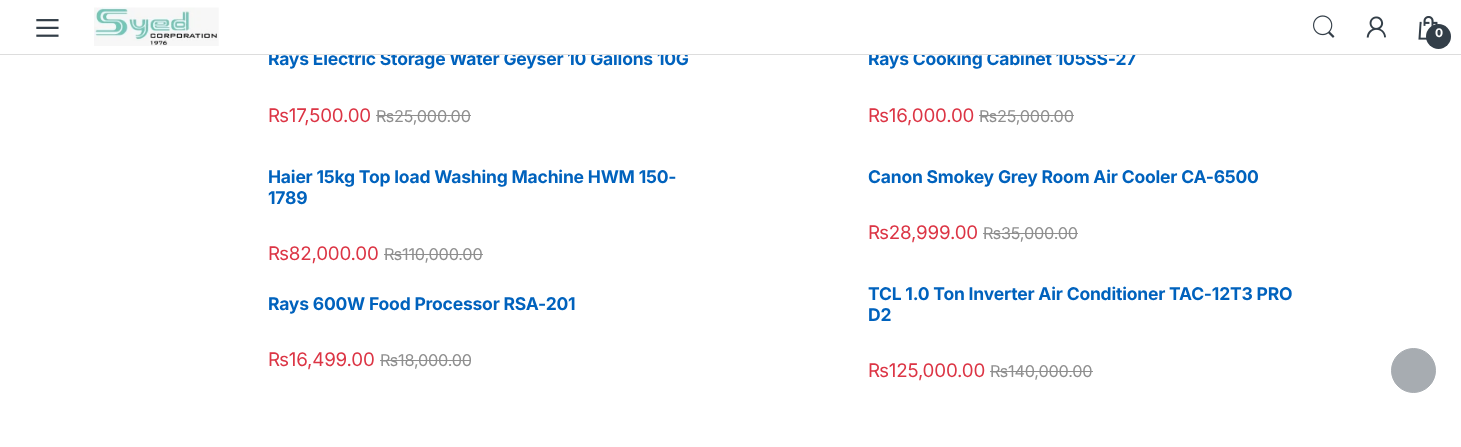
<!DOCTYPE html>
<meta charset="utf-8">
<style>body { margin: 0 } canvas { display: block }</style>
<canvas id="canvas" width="1461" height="447"></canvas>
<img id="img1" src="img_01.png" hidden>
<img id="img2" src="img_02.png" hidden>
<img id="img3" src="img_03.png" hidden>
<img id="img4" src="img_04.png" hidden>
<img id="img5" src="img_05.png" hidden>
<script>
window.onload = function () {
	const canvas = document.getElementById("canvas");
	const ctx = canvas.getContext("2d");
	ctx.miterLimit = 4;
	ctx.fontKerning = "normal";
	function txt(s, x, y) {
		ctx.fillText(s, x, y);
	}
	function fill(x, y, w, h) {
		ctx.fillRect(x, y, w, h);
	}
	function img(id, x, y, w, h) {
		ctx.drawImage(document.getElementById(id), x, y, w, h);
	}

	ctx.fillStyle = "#FFFFFF";
	fill(0, 0, 1461, 447);
	img("img1", 36, 19, 23, 18);
	img("img2", 94, 7, 125, 39);
	img("img3", 1313, 15, 22, 23);
	img("img4", 1366, 16, 20, 22);
	img("img5", 1418, 16, 20, 24);
	ctx.fillStyle = "#333E48";
	ctx.beginPath();
	ctx.arc(1438.5, 36.5, 12.5, 0, Math.PI * 2);
	ctx.fill();
	ctx.fillStyle = "#8F8F8F";
	fill(376, 115, 95, 1);
	fill(384, 254, 99, 1);
	fill(380, 360, 91, 1);
	fill(979, 115, 95, 1);
	fill(983, 233, 95, 1);
	fill(990, 371, 103, 1);
	ctx.fillStyle = "#A7ACB1";
	ctx.beginPath();
	ctx.arc(1413.5, 370.5, 22, 0, Math.PI * 2);
	ctx.fill();
	ctx.strokeStyle = "#A7ACB1";
	ctx.stroke();
	ctx.letterSpacing = "-0.2px";
	ctx.font = "bold 12px Inter";
	ctx.fillStyle = "#FFFFFF";
	txt("0", 1435, 37);
	ctx.font = "bold 17.5px Inter";
	ctx.fillStyle = "#0062BD";
	txt("Rays Electric Storage Water Geyser 10 Gallons 10G", 268, 65);
	ctx.font = "18.75px Inter";
	ctx.fillStyle = "#DC3545";
	txt("₨17,500.00", 268, 122);
	ctx.font = "16.25px Inter";
	ctx.fillStyle = "#8F8F8F";
	txt("₨25,000.00", 376, 122);
	ctx.font = "bold 17.5px Inter";
	ctx.fillStyle = "#0062BD";
	txt("Haier 15kg Top load Washing Machine HWM 150-", 268, 183);
	txt("1789", 268, 204);
	ctx.font = "18.75px Inter";
	ctx.fillStyle = "#DC3545";
	txt("₨82,000.00", 268, 260);
	ctx.font = "16.25px Inter";
	ctx.fillStyle = "#8F8F8F";
	txt("₨110,000.00", 384, 260);
	ctx.font = "bold 17.5px Inter";
	ctx.fillStyle = "#0062BD";
	txt("Rays 600W Food Processor RSA-201", 268, 310);
	ctx.font = "18.75px Inter";
	ctx.fillStyle = "#DC3545";
	txt("₨16,499.00", 268, 366);
	ctx.font = "16.25px Inter";
	ctx.fillStyle = "#8F8F8F";
	txt("₨18,000.00", 380, 366);
	ctx.font = "bold 17.5px Inter";
	ctx.fillStyle = "#0062BD";
	txt("Rays Cooking Cabinet 105SS-27", 868, 65);
	ctx.fillStyle = "#DDDDDD";
	fill(0, 54, 1461, 1);
	ctx.fillStyle = "#FFFFFF";
	fill(269, 51, 868, 3);
	ctx.font = "18.75px Inter";
	ctx.fillStyle = "#DC3545";
	txt("₨16,000.00", 868, 122);
	ctx.font = "16.25px Inter";
	ctx.fillStyle = "#8F8F8F";
	txt("₨25,000.00", 979, 122);
	ctx.font = "bold 17.5px Inter";
	ctx.fillStyle = "#0062BD";
	txt("Canon Smokey Grey Room Air Cooler CA-6500", 868, 183);
	ctx.font = "18.75px Inter";
	ctx.fillStyle = "#DC3545";
	txt("₨28,999.00", 868, 239);
	ctx.font = "16.25px Inter";
	ctx.fillStyle = "#8F8F8F";
	txt("₨35,000.00", 983, 239);
	ctx.font = "bold 17.5px Inter";
	ctx.fillStyle = "#0062BD";
	txt("TCL 1.0 Ton Inverter Air Conditioner TAC-12T3 PRO", 868, 300);
	txt("D2", 868, 321);
	ctx.font = "18.75px Inter";
	ctx.fillStyle = "#DC3545";
	txt("₨125,000.00", 868, 377);
	ctx.font = "16.25px Inter";
	ctx.fillStyle = "#8F8F8F";
	txt("₨140,000.00", 990, 377);
};
</script>
